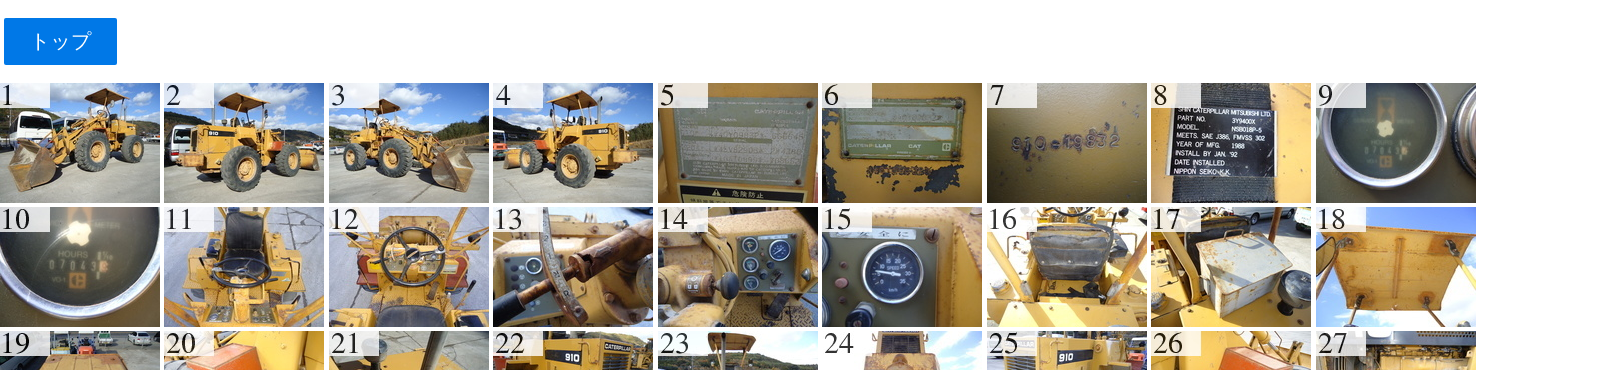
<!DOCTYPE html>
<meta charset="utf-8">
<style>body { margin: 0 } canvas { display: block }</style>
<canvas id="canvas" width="1606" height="370"></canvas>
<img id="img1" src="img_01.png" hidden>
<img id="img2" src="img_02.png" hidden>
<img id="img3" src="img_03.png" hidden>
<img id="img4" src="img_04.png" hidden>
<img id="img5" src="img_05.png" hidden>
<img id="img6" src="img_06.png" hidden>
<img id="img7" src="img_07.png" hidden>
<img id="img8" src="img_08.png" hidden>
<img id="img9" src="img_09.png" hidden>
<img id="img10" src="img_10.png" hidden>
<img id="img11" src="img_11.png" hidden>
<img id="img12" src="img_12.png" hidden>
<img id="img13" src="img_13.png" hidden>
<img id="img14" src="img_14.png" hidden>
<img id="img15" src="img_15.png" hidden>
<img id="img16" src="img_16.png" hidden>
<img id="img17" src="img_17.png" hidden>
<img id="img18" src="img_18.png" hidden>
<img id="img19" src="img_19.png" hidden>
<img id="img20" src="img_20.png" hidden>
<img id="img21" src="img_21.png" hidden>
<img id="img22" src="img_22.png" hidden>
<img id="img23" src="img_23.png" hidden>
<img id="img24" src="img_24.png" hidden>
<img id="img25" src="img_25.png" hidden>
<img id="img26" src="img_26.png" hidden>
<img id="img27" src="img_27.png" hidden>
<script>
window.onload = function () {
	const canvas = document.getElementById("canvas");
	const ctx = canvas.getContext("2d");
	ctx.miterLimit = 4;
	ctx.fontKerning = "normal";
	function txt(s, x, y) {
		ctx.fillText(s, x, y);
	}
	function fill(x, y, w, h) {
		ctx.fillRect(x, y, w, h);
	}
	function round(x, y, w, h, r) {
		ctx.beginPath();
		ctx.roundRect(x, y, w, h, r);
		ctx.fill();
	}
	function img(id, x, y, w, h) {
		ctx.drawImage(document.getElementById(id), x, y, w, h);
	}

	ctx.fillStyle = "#FFFFFF";
	fill(0, 0, 1606, 370);
	ctx.fillStyle = "#0078E7";
	round(4, 18, 113, 47, 2);
	img("img1", 0, 83, 160, 120);
	img("img2", 164, 83, 160, 120);
	img("img3", 329, 83, 160, 120);
	img("img4", 493, 83, 160, 120);
	img("img5", 658, 83, 160, 120);
	img("img6", 822, 83, 160, 120);
	img("img7", 987, 83, 160, 120);
	img("img8", 1151, 83, 160, 120);
	img("img9", 1316, 83, 160, 120);
	img("img10", 0, 207, 160, 120);
	img("img11", 164, 207, 160, 120);
	img("img12", 329, 207, 160, 120);
	img("img13", 493, 207, 160, 120);
	img("img14", 658, 207, 160, 120);
	img("img15", 822, 207, 160, 120);
	img("img16", 987, 207, 160, 120);
	img("img17", 1151, 207, 160, 120);
	img("img18", 1316, 207, 160, 120);
	img("img19", 0, 331, 160, 39);
	img("img20", 164, 331, 160, 39);
	img("img21", 329, 331, 160, 39);
	img("img22", 493, 331, 160, 39);
	img("img23", 658, 331, 160, 39);
	img("img24", 823, 331, 159, 39);
	img("img25", 987, 331, 160, 39);
	img("img26", 1151, 331, 160, 39);
	img("img27", 1316, 331, 160, 39);
	ctx.font = "500 20px WenQuanYi Zen Hei";
	ctx.fillStyle = "#FFFFFF";
	txt("トップ", 30, 48);
};
</script>
